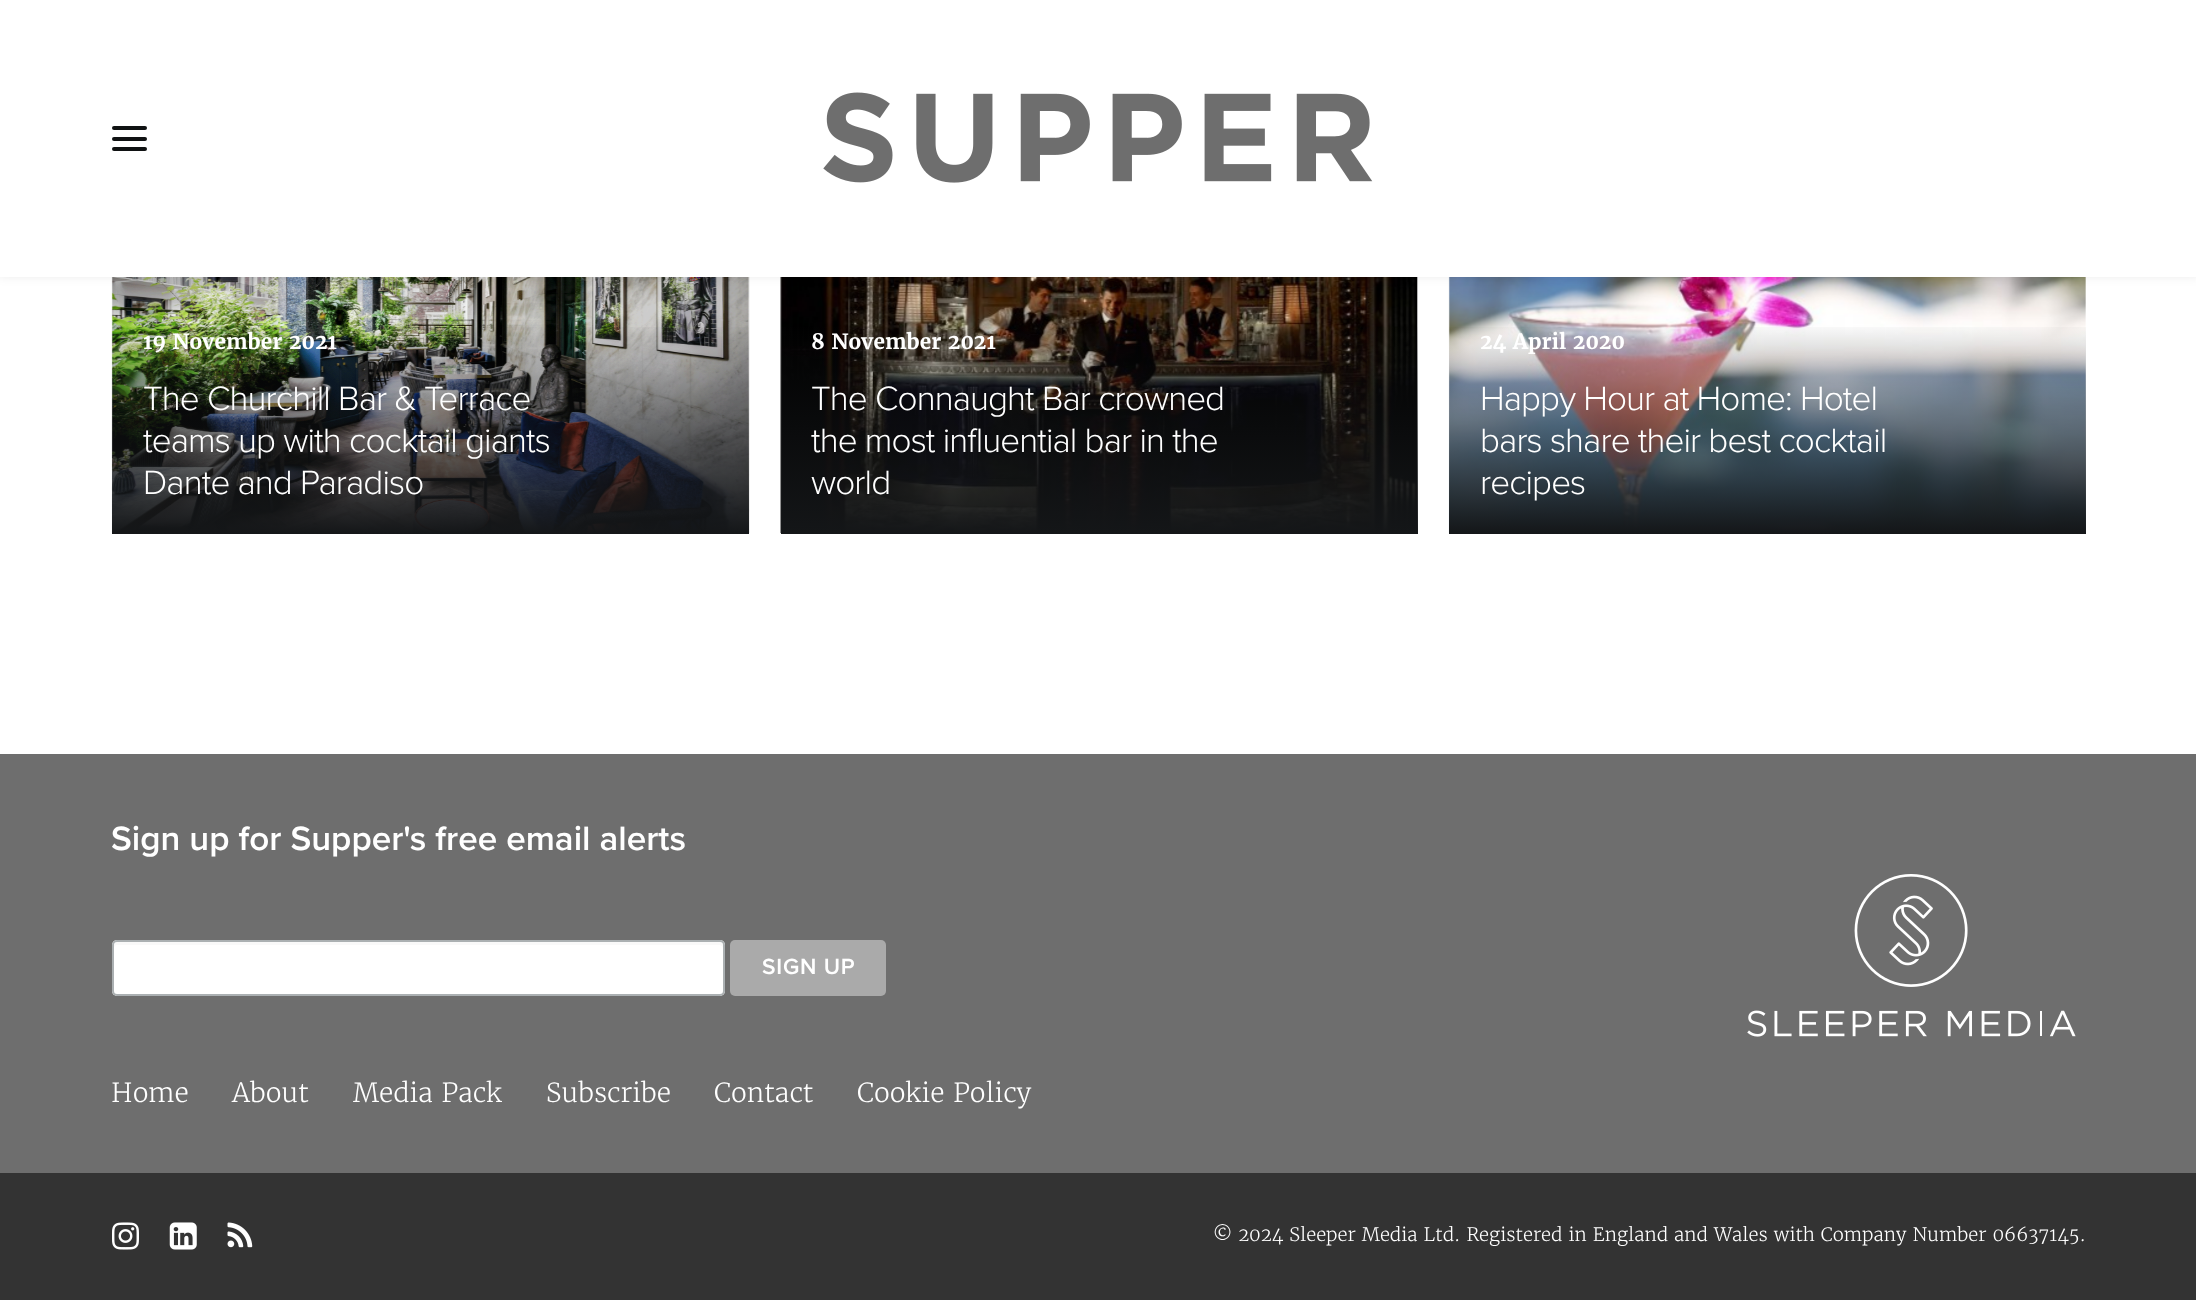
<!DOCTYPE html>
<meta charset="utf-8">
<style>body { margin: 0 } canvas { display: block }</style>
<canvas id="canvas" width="2196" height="1300"></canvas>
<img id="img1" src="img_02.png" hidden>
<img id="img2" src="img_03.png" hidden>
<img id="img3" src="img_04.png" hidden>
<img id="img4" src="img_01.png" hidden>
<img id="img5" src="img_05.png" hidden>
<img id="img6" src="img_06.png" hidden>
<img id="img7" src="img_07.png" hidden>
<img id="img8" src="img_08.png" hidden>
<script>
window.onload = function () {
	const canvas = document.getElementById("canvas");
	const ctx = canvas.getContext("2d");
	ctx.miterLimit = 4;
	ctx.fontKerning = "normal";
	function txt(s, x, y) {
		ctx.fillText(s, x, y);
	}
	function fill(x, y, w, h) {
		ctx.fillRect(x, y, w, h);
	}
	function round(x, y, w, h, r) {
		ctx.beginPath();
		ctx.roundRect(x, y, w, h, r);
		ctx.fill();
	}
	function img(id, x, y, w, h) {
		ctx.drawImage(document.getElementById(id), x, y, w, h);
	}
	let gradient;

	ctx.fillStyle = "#FFFFFF";
	fill(0, 0, 2196, 1300);
	img("img1", 111, 277, 639, 256);
	img("img2", 780, 277, 638, 257);
	img("img3", 1448, 277, 638, 256);
	ctx.fillStyle = "rgba(0, 0, 0, 0.1)";
	ctx.filter = "blur(6px)";
	ctx.beginPath();
	ctx.rect(-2, 2, 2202, 273);
	ctx.fill();
	ctx.filter = "none";
	ctx.fillStyle = "#FFFFFF";
	fill(0, 0, 2196, 277);
	ctx.fillStyle = "#101213";
	round(112, 137, 35, 4, 2);
	round(112, 126, 35, 4, 2);
	round(112, 147, 35, 4, 2);
	img("img4", 823, 92, 550, 91);
	gradient = ctx.createLinearGradient(431, 534, 431, 110);
	gradient.addColorStop(0, "#141618");
	gradient.addColorStop(0.5, "rgba(20, 22, 24, 0)");
	ctx.fillStyle = gradient;
	fill(112, 327, 637, 207);
	gradient = ctx.createLinearGradient(1099, 534, 1099, 110);
	gradient.addColorStop(0, "#141618");
	gradient.addColorStop(0.5, "rgba(20, 22, 24, 0)");
	ctx.fillStyle = gradient;
	fill(781, 327, 637, 207);
	gradient = ctx.createLinearGradient(1768, 534, 1768, 110);
	gradient.addColorStop(0, "#141618");
	gradient.addColorStop(0.5, "rgba(20, 22, 24, 0)");
	ctx.fillStyle = gradient;
	fill(1449, 327, 637, 207);
	ctx.fillStyle = "#6E6E6E";
	fill(0, 754, 2196, 419);
	ctx.fillStyle = "#FFFFFF";
	round(112, 940, 613, 56, 5);
	ctx.fillStyle = "#F9F9F9";
	ctx.beginPath();
	ctx.moveTo(117, 945);
	ctx.lineTo(719, 945);
	ctx.bezierCurveTo(721, 945, 723, 947, 723, 948);
	ctx.lineTo(723, 946);
	ctx.bezierCurveTo(723, 944, 721, 942, 719, 942);
	ctx.lineTo(118, 942);
	ctx.bezierCurveTo(116, 942, 114, 944, 114, 946);
	ctx.lineTo(114, 948);
	ctx.bezierCurveTo(114, 947, 115, 945, 117, 945);
	ctx.closePath();
	ctx.fill();
	ctx.beginPath();
	ctx.roundRect(113, 941, 611, 54, 4);
	ctx.strokeStyle = "#ABB0B2";
	ctx.lineWidth = 2;
	ctx.stroke();
	ctx.fillStyle = "#AAAAAA";
	round(730, 940, 156, 56, 5);
	img("img5", 1747, 874, 329, 163);
	ctx.fillStyle = "#333333";
	fill(0, 1173, 2196, 127);
	img("img6", 112, 1222, 27, 28);
	img("img7", 169, 1222, 28, 28);
	img("img8", 227, 1222, 26, 26);
	ctx.font = "bold 21px Merriweather";
	ctx.fillStyle = "#FFFFFF";
	txt("19 November 2021", 143, 349);
	ctx.letterSpacing = "-0.9px";
	ctx.font = "300 35px Proxima Nova";
	txt("The Churchill Bar & Terrace", 143, 410);
	txt("teams up with cocktail giants", 143, 452);
	txt("Dante and Paradiso", 143, 494);
	ctx.letterSpacing = "0px";
	ctx.font = "bold 21px Merriweather";
	txt("8 November 2021", 811, 349);
	ctx.letterSpacing = "-0.9px";
	ctx.font = "300 35px Proxima Nova";
	txt("The Connaught Bar crowned", 811, 410);
	txt("the most influential bar in the", 811, 452);
	txt("world", 811, 494);
	ctx.letterSpacing = "0px";
	ctx.font = "bold 21px Merriweather";
	txt("24 April 2020", 1480, 349);
	ctx.letterSpacing = "-0.9px";
	ctx.font = "300 35px Proxima Nova";
	txt("Happy Hour at Home: Hotel", 1480, 410);
	txt("bars share their best cocktail", 1480, 452);
	txt("recipes", 1480, 494);
	ctx.letterSpacing = "0px";
	ctx.font = "600 35px Proxima Nova";
	txt("Sign up for Supper's free email alerts", 111, 850);
	ctx.letterSpacing = "0.75px";
	ctx.font = "600 22.75px Proxima Nova";
	txt("SIGN UP", 762, 974);
	ctx.letterSpacing = "0px";
	ctx.font = "300 26.25px Merriweather";
	txt("Home", 111, 1102);
	txt("About", 232, 1102);
	txt("Media Pack", 353, 1102);
	txt("Subscribe", 546, 1102);
	txt("Contact", 714, 1102);
	txt("Cookie Policy", 857, 1102);
	ctx.font = "300 18.4px Merriweather";
	txt("© 2024 Sleeper Media Ltd. Registered in England and Wales with Company Number 06637145.", 1213, 1241);
};
</script>
